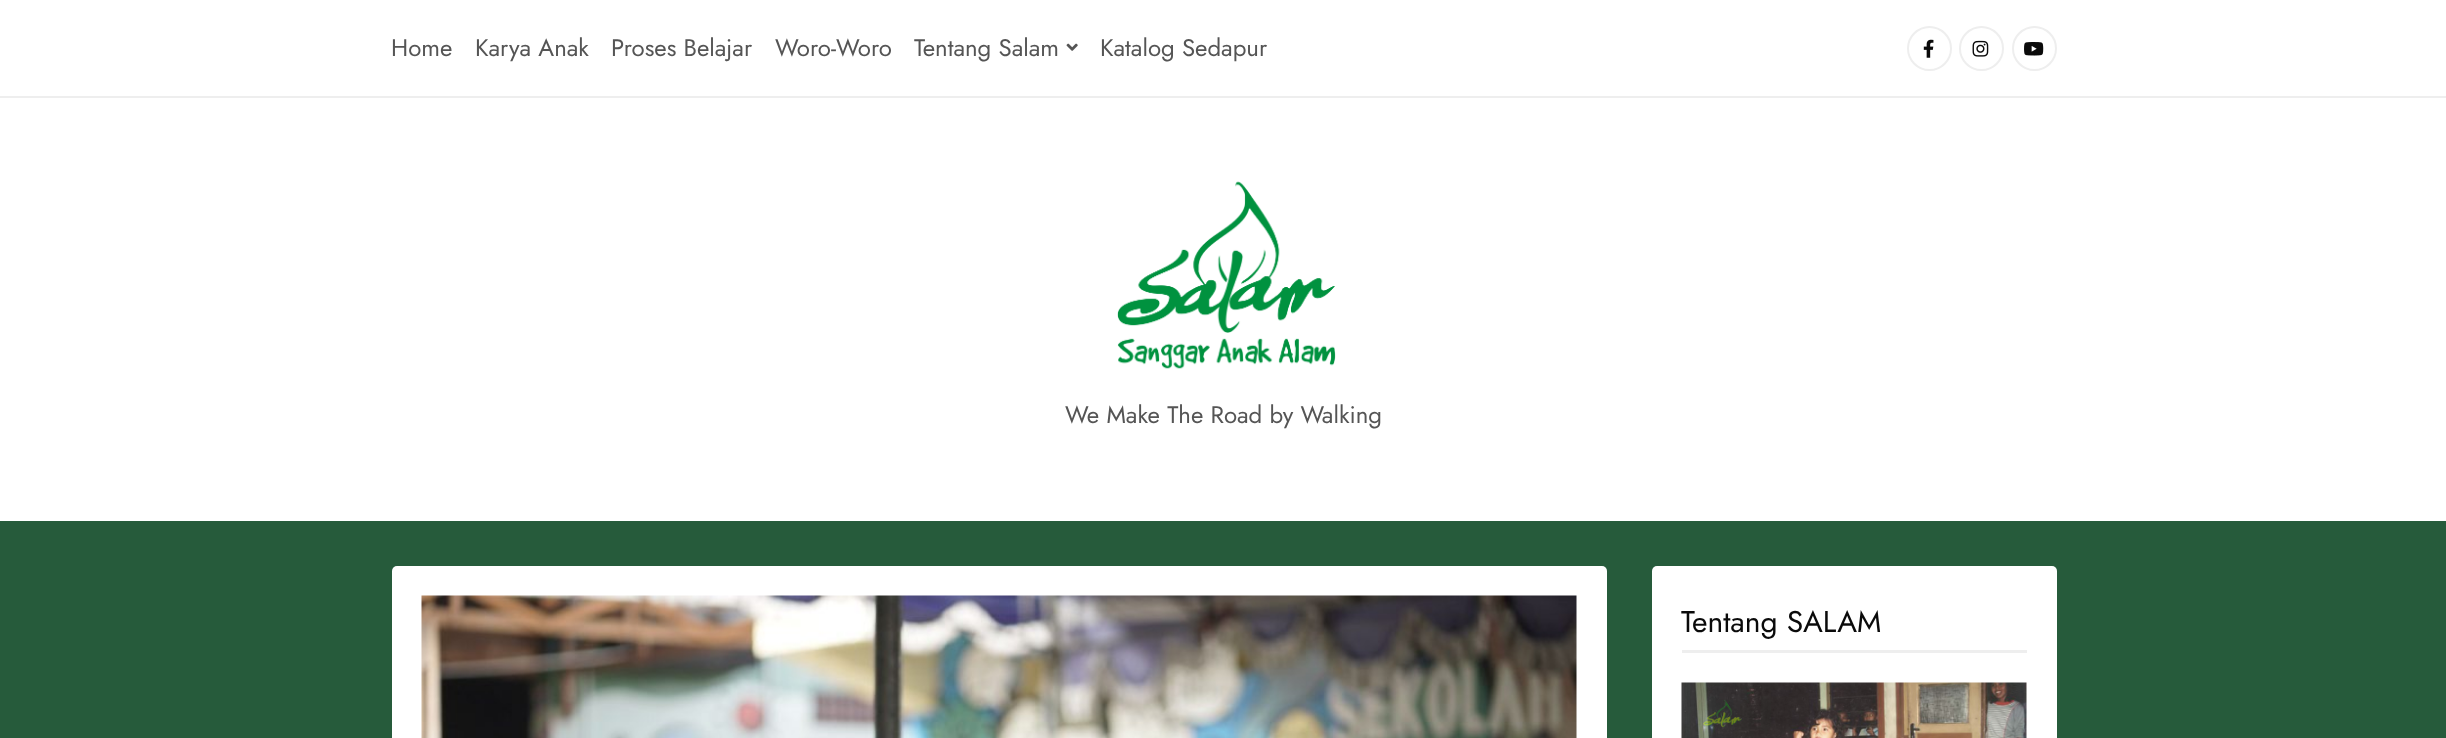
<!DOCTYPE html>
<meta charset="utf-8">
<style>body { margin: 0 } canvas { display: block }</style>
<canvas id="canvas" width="2446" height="738"></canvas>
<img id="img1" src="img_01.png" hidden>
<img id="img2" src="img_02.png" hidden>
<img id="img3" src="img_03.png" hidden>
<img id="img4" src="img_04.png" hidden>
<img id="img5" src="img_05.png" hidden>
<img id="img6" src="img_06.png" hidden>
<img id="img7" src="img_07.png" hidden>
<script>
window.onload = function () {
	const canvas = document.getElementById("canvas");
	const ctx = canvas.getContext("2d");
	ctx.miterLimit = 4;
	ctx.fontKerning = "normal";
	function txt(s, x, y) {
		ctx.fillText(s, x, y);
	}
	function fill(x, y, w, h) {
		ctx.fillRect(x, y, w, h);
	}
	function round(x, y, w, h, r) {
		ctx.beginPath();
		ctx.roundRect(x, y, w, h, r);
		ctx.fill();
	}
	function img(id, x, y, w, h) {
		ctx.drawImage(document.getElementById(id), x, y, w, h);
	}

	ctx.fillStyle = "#265B3B";
	fill(0, 0, 2446, 738);
	ctx.fillStyle = "#FFFFFF";
	fill(0, 0, 2446, 521);
	ctx.fillStyle = "#EEEEEE";
	fill(0, 96, 2446, 2);
	img("img1", 1066, 43, 12, 8);
	ctx.beginPath();
	ctx.arc(1929.5, 48.5, 21.5, 0, Math.PI * 2);
	ctx.strokeStyle = "#EEEEEE";
	ctx.lineWidth = 2;
	ctx.stroke();
	img("img2", 1923, 39, 11, 19);
	ctx.beginPath();
	ctx.arc(1981.5, 48.5, 21.5, 0, Math.PI * 2);
	ctx.stroke();
	img("img3", 1972, 40, 17, 17);
	ctx.beginPath();
	ctx.arc(2034.5, 48.5, 21.5, 0, Math.PI * 2);
	ctx.stroke();
	img("img4", 2024, 42, 20, 14);
	img("img5", 1117, 181, 219, 188);
	ctx.fillStyle = "#FFFFFF";
	round(392, 566, 1215, 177, 5);
	img("img6", 421, 595, 1156, 143);
	round(1652, 566, 405, 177, 5);
	ctx.fillStyle = "#EEEEEE";
	fill(1682, 650, 345, 3);
	img("img7", 1681, 682, 346, 56);
	ctx.font = "24px Jost";
	ctx.fillStyle = "#555555";
	txt("Home", 391, 56);
	txt("Karya Anak", 475, 56);
	txt("Proses Belajar", 611, 56);
	txt("Woro-Woro", 775, 56);
	txt("Tentang Salam", 914, 56);
	txt("Katalog Sedapur", 1100, 56);
	txt("We Make The Road by Walking", 1065, 423);
	ctx.font = "30px Jost";
	ctx.fillStyle = "#0A0A0A";
	txt("Tentang SALAM", 1681, 632);
};
</script>
